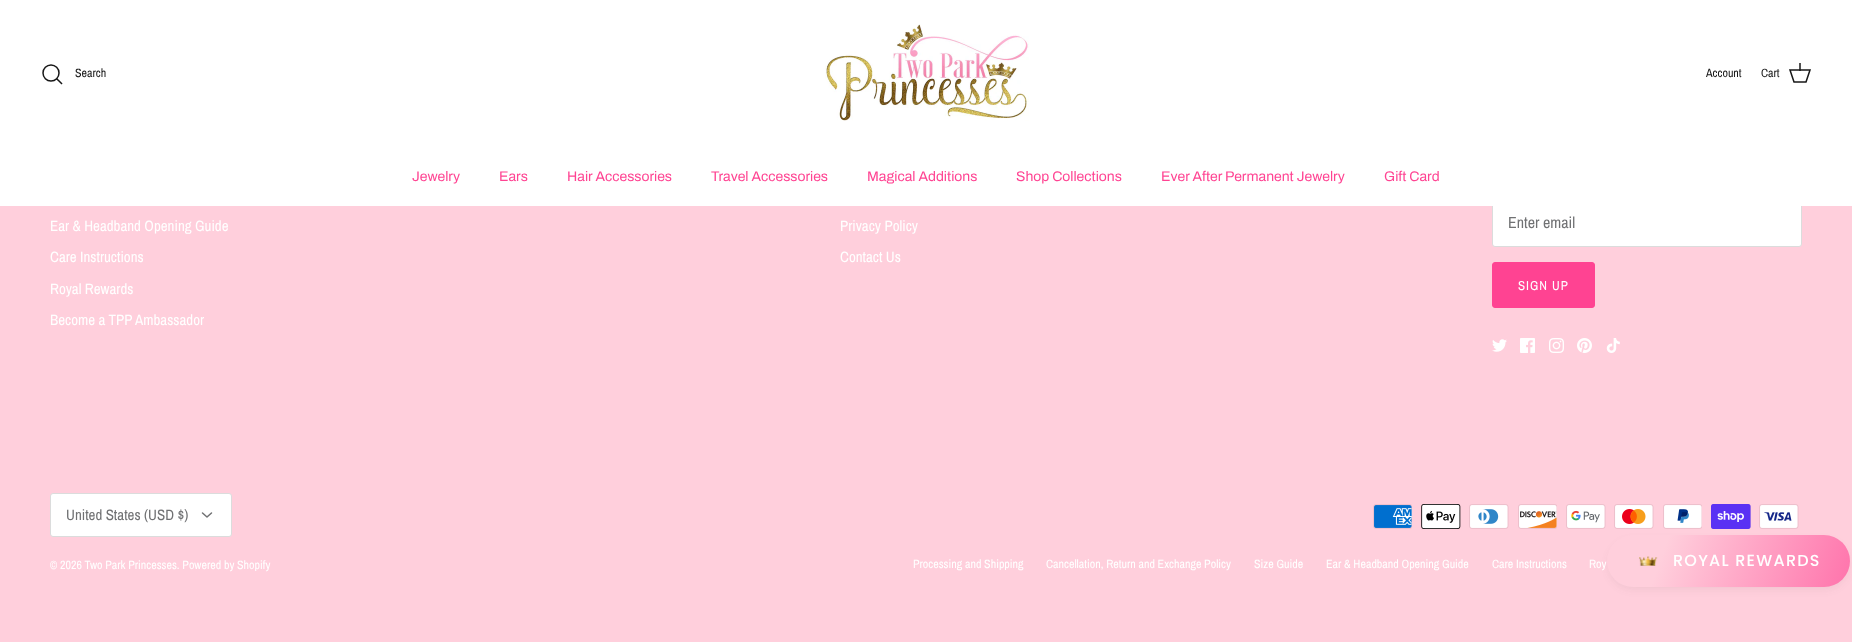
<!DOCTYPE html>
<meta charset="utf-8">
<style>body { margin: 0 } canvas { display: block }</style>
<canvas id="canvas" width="1852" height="642"></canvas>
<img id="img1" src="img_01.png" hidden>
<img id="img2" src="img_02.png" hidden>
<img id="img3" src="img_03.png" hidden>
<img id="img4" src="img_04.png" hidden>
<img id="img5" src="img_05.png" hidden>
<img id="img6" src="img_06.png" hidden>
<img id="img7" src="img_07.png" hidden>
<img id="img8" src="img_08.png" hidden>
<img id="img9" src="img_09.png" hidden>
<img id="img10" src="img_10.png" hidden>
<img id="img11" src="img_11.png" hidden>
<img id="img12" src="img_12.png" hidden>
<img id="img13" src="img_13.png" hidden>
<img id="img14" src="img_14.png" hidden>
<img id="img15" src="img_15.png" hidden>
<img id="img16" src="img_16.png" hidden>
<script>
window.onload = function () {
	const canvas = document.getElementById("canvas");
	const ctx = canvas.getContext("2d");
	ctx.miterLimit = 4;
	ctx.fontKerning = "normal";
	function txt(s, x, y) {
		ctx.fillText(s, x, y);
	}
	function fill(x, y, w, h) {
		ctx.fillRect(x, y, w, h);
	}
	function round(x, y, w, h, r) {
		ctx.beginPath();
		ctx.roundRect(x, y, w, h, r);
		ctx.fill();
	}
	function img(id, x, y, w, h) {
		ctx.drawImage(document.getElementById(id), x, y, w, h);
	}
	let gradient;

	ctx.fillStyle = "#FFCFDC";
	fill(0, 0, 1852, 642);
	ctx.fillStyle = "#FFFFFF";
	ctx.beginPath();
	ctx.roundRect(1492.5, 197.5, 309, 49, 2.5);
	ctx.fill();
	ctx.strokeStyle = "#DBDCDC";
	ctx.stroke();
	fill(0, 0, 1852, 206);
	ctx.beginPath();
	ctx.arc(51, 73, 8, 0, Math.PI * 2);
	ctx.strokeStyle = "#171717";
	ctx.lineWidth = 1.5;
	ctx.stroke();
	ctx.beginPath();
	ctx.moveTo(57, 79);
	ctx.lineTo(61.5, 83.5);
	ctx.lineCap = "square";
	ctx.stroke();
	img("img1", 825, 24, 204, 97);
	ctx.beginPath();
	ctx.moveTo(1790, 70);
	ctx.lineTo(1810, 70);
	ctx.lineTo(1806, 82);
	ctx.lineTo(1794, 82);
	ctx.closePath();
	ctx.lineCap = "butt";
	ctx.stroke();
	ctx.fillStyle = "rgba(23, 23, 23, 0.75)";
	fill(1799, 63, 2, 8);
	ctx.fillStyle = "#FF4392";
	ctx.beginPath();
	ctx.roundRect(1492.5, 262.5, 102, 45, 2.5);
	ctx.fill();
	ctx.strokeStyle = "#FF4392";
	ctx.lineWidth = 1;
	ctx.stroke();
	img("img2", 1492, 339, 15, 13);
	img("img3", 1520, 338, 15, 15);
	img("img4", 1549, 338, 15, 15);
	img("img5", 1577, 338, 15, 15);
	img("img6", 1606, 338, 14, 15);
	ctx.fillStyle = "#FFFFFF";
	ctx.beginPath();
	ctx.roundRect(50.5, 493.5, 181, 43, 2.5);
	ctx.fill();
	ctx.strokeStyle = "#DBDCDC";
	ctx.stroke();
	ctx.beginPath();
	ctx.moveTo(202.5, 513);
	ctx.lineTo(207, 517);
	ctx.lineTo(211.5, 513);
	ctx.strokeStyle = "#707173";
	ctx.lineWidth = 1.5;
	ctx.lineCap = "round";
	ctx.lineJoin = "round";
	ctx.stroke();
	img("img7", 1373, 504, 39, 25);
	img("img8", 1421, 504, 40, 25);
	img("img9", 1469, 504, 40, 25);
	img("img10", 1518, 504, 39, 25);
	img("img11", 1566, 504, 40, 25);
	img("img12", 1614, 504, 40, 25);
	img("img13", 1663, 504, 39, 25);
	img("img14", 1711, 504, 40, 25);
	img("img15", 1759, 504, 40, 25);
	ctx.fillStyle = "rgba(68, 68, 68, 0.08)";
	ctx.filter = "blur(4px)";
	ctx.beginPath();
	ctx.roundRect(1609, 541, 239, 48, 24);
	ctx.fill();
	ctx.filter = "none";
	gradient = ctx.createLinearGradient(1612, 520, 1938, 635);
	gradient.addColorStop(0.17, "#FFCFDC");
	gradient.addColorStop(1, "#FF4392");
	ctx.fillStyle = gradient;
	round(1607, 535, 243, 52, 26);
	img("img16", 1639, 556, 19, 10);
	ctx.font = "12px Archivo Narrow";
	ctx.fillStyle = "#171717";
	txt("Search", 75, 77);
	txt("Account", 1706, 77);
	txt("Cart", 1761, 77);
	ctx.font = "14px Archivo";
	ctx.fillStyle = "#FF4392";
	txt("Jewelry", 412, 181);
	txt("Ears", 499, 181);
	txt("Hair Accessories", 567, 181);
	txt("Travel Accessories", 711, 181);
	txt("Magical Additions", 867, 181);
	txt("Shop Collections", 1016, 181);
	txt("Ever After Permanent Jewelry", 1161, 181);
	txt("Gift Card", 1384, 181);
	ctx.font = "15px Archivo Narrow";
	ctx.fillStyle = "#FFFFFF";
	txt("Ear & Headband Opening Guide", 50, 231);
	txt("Care Instructions", 50, 262);
	txt("Royal Rewards", 50, 294);
	txt("Become a TPP Ambassador", 50, 325);
	txt("Privacy Policy", 840, 231);
	txt("Contact Us", 840, 262);
	ctx.font = "16px Archivo Narrow";
	ctx.fillStyle = "#707173";
	txt("Enter email", 1508, 228);
	ctx.letterSpacing = "1px";
	ctx.font = "13px Archivo Narrow";
	ctx.fillStyle = "#FFFFFF";
	txt("SIGN UP", 1518, 290);
	ctx.letterSpacing = "0px";
	ctx.font = "15px Archivo Narrow";
	ctx.fillStyle = "#707173";
	txt("United States (USD $)", 66, 520);
	ctx.font = "12px Archivo Narrow";
	ctx.fillStyle = "#FFFFFF";
	txt("© 2026 Two Park Princesses. Powered by Shopify", 50, 569);
	txt("Processing and Shipping", 913, 568);
	txt("Cancellation, Return and Exchange Policy", 1046, 568);
	txt("Size Guide", 1254, 568);
	txt("Ear & Headband Opening Guide", 1326, 568);
	txt("Care Instructions", 1492, 568);
	txt("Roy", 1589, 568);
	ctx.letterSpacing = "1.25px";
	ctx.font = "500 16px Poppins";
	txt("ROYAL REWARDS", 1673, 566);
};
</script>
